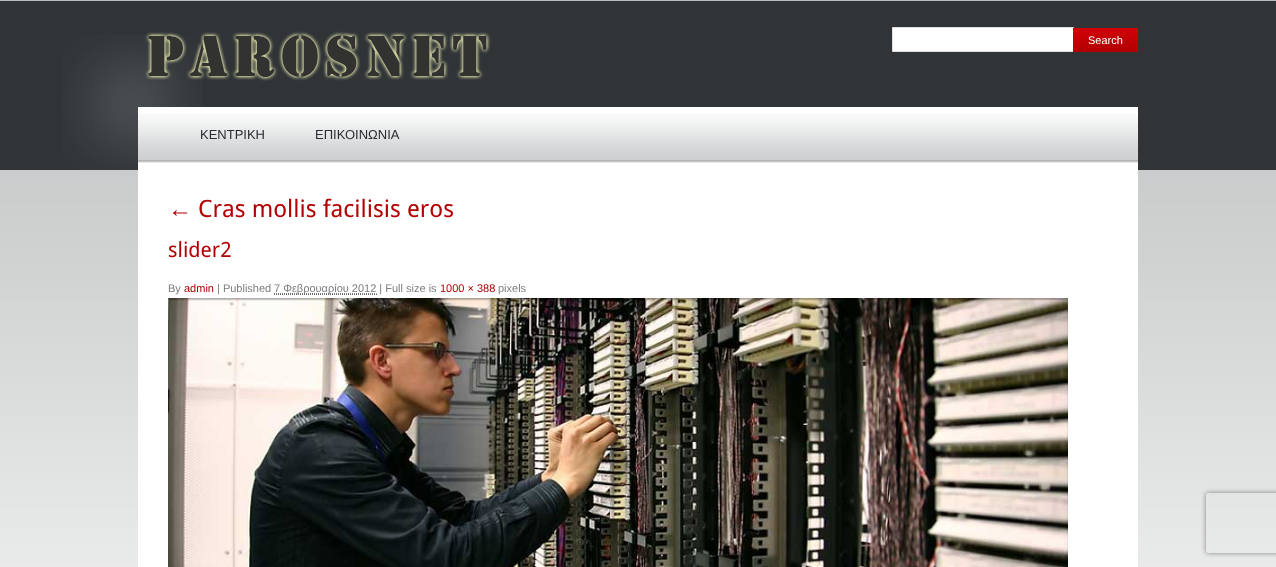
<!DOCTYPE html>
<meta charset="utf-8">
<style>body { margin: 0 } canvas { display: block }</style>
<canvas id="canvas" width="1276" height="567"></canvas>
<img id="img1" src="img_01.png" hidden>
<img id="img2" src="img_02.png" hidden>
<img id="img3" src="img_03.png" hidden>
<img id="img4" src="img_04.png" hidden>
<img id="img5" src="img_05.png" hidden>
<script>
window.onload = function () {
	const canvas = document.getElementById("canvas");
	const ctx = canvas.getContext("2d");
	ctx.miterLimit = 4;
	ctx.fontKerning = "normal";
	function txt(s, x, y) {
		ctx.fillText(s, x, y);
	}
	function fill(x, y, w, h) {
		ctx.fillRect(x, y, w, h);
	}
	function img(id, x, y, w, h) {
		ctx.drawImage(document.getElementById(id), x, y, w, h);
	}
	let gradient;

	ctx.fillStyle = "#FFFFFF";
	fill(0, 0, 1276, 567);
	img("img1", 0, 170, 1276, 397);
	ctx.fillStyle = "#303437";
	fill(0, 1, 1276, 169);
	img("img2", 62, 34, 141, 136);
	ctx.fillStyle = "#B9BDC3";
	fill(0, 0, 1276, 1);
	img("img3", 145, 31, 346, 50);
	ctx.fillStyle = "#FFFFFF";
	ctx.beginPath();
	ctx.rect(892.5, 27.5, 181, 24);
	ctx.fill();
	ctx.strokeStyle = "#DEDEDE";
	ctx.stroke();
	gradient = ctx.createLinearGradient(1073, 28, 1073, 52);
	gradient.addColorStop(0, "#D10005");
	gradient.addColorStop(1, "#B30004");
	ctx.fillStyle = gradient;
	fill(1073, 28, 65, 24);
	ctx.fillStyle = "#FFFFFF";
	fill(138, 107, 1000, 460);
	img("img4", 138, 113, 1000, 50);
	ctx.beginPath();
	ctx.moveTo(274, 294.5);
	ctx.lineTo(377, 294.5);
	ctx.strokeStyle = "#666666";
	ctx.setLineDash([1, 1]);
	ctx.stroke();
	ctx.beginPath();
	ctx.moveTo(274, 293.5);
	ctx.lineTo(376.5, 293.5);
	ctx.strokeStyle = "#7A7D80";
	ctx.stroke();
	img("img5", 168, 298, 900, 269);
	ctx.save();
	ctx.beginPath();
	ctx.moveTo(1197, 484);
	ctx.lineTo(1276, 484);
	ctx.lineTo(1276, 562);
	ctx.lineTo(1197, 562);
	ctx.closePath();
	ctx.moveTo(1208, 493);
	ctx.lineTo(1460, 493);
	ctx.bezierCurveTo(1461, 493, 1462, 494, 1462, 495);
	ctx.lineTo(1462, 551);
	ctx.bezierCurveTo(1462, 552, 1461, 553, 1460, 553);
	ctx.lineTo(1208, 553);
	ctx.bezierCurveTo(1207, 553, 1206, 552, 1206, 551);
	ctx.lineTo(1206, 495);
	ctx.bezierCurveTo(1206, 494, 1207, 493, 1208, 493);
	ctx.closePath();
	ctx.clip("evenodd");
	ctx.fillStyle = "#808080";
	ctx.filter = "blur(2.5px)";
	ctx.beginPath();
	ctx.roundRect(1206, 493, 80, 60, 2);
	ctx.fill();
	ctx.filter = "none";
	ctx.restore();
	ctx.font = "11px Liberation Sans";
	txt("Search", 1088, 44);
	ctx.font = "13px Liberation Sans";
	ctx.fillStyle = "#2A2E31";
	txt("ΚΕΝΤΡΙΚΗ", 200, 139);
	txt("ΕΠΙΚΟΙΝΩΝΙΑ", 315, 139);
	ctx.font = "24px Liberation Sans";
	ctx.fillStyle = "#B30004";
	txt("←", 168, 217);
	ctx.font = "24px Droid Sans";
	txt("Cras mollis facilisis eros", 198, 217);
	ctx.font = "21px Droid Sans";
	txt("slider2", 168, 257);
	ctx.font = "11px Liberation Sans";
	ctx.fillStyle = "#7A7D80";
	txt("By", 168, 292);
	ctx.fillStyle = "#B30004";
	txt("admin", 184, 292);
	ctx.fillStyle = "#7A7D80";
	txt("| Published", 217, 292);
	txt("7 Φεβρουαρίου 2012 | Full size is", 274, 292);
	ctx.fillStyle = "#B30004";
	txt("1000 × 388", 440, 292);
	ctx.fillStyle = "#7A7D80";
	txt("pixels", 498, 292);
};
</script>
